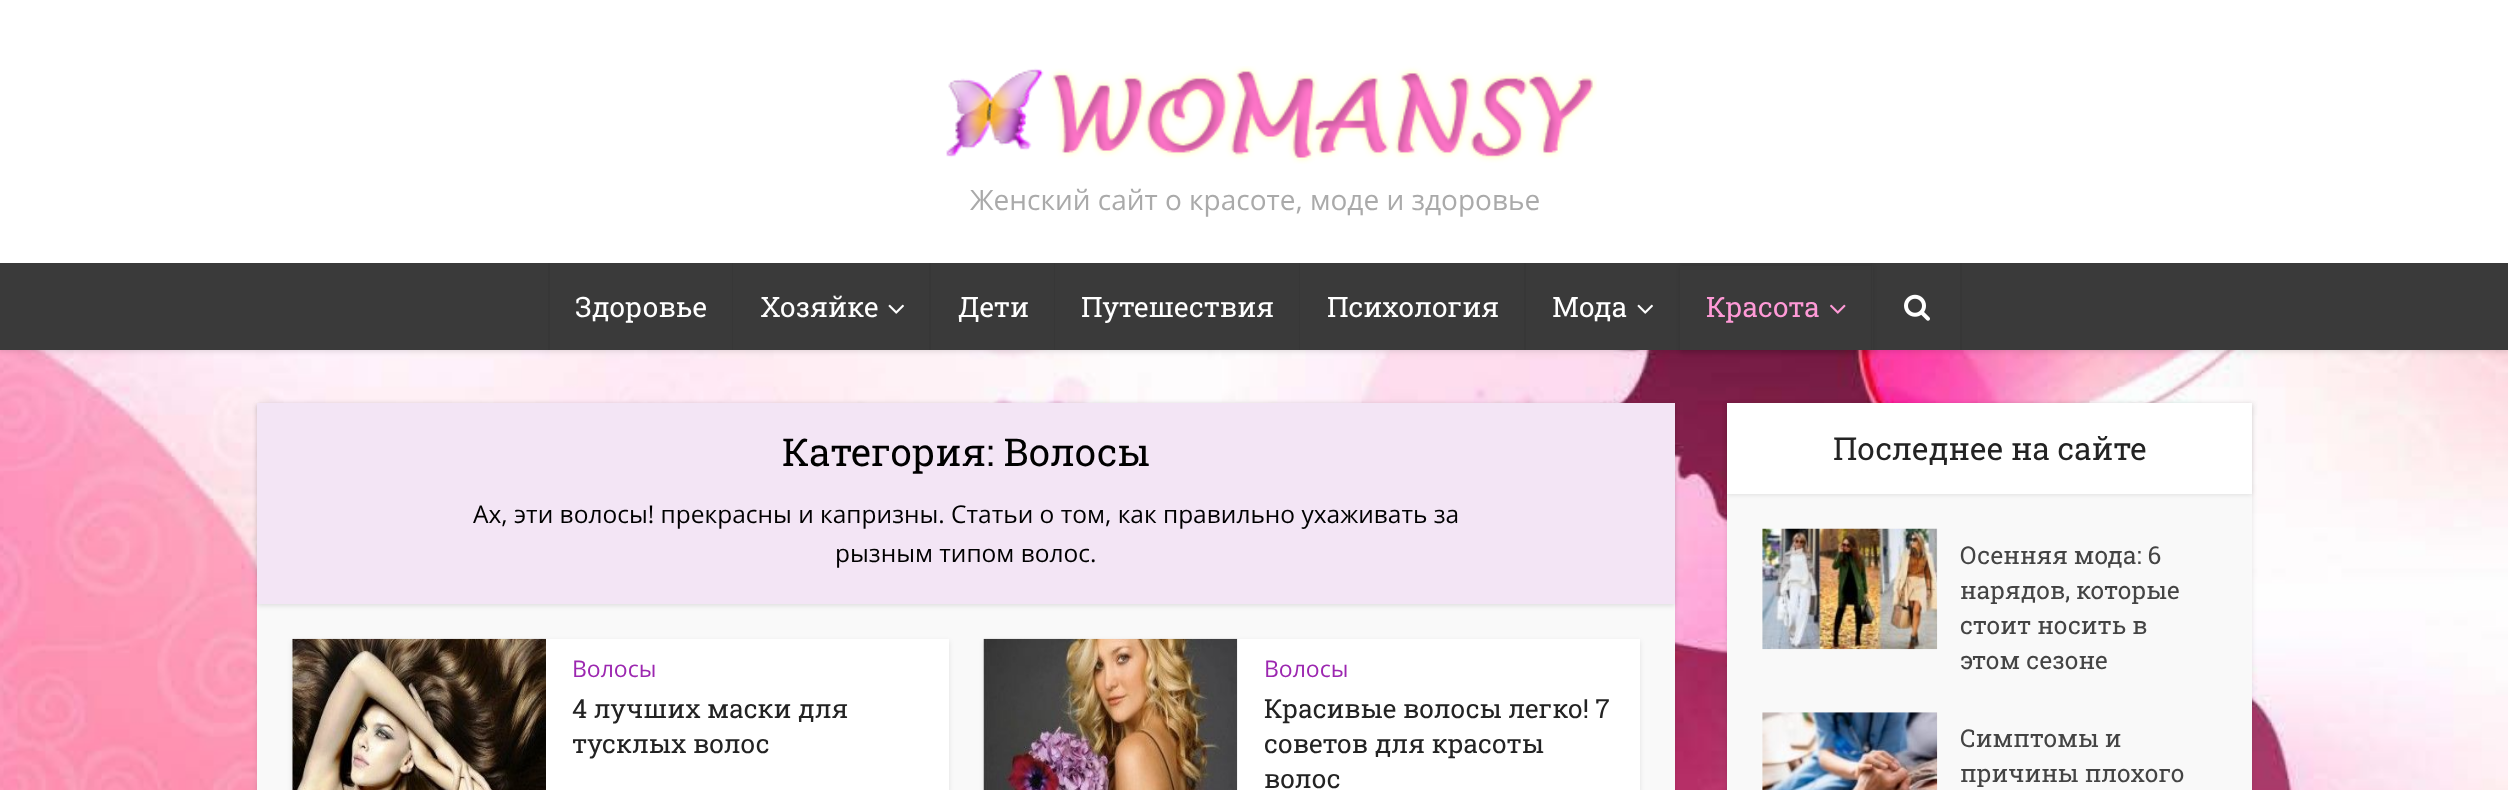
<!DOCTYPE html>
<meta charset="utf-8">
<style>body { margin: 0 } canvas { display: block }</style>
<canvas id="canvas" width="2508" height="790"></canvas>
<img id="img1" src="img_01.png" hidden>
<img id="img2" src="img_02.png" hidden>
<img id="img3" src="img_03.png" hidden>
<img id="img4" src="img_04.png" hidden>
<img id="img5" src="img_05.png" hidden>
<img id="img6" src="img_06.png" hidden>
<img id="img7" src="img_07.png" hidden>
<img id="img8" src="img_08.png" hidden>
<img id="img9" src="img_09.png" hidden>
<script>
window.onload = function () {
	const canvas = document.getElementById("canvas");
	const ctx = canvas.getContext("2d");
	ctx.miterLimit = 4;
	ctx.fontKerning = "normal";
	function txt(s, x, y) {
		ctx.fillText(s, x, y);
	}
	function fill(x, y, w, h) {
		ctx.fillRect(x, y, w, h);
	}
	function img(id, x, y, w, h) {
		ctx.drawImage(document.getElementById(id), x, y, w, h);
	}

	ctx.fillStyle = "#FFFFFF";
	fill(0, 0, 2508, 790);
	img("img1", 0, 350, 2508, 440);
	ctx.fillStyle = "rgba(0, 0, 0, 0.1)";
	ctx.filter = "blur(2.5px)";
	ctx.beginPath();
	ctx.rect(0, 2, 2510, 350);
	ctx.fill();
	ctx.filter = "none";
	ctx.fillStyle = "#FFFFFF";
	fill(0, 0, 2508, 263);
	img("img2", 946, 66, 651, 98);
	ctx.fillStyle = "#3A3A3A";
	fill(0, 263, 2508, 87);
	ctx.fillStyle = "#373737";
	fill(548, 263, 2, 87);
	fill(732, 263, 1, 87);
	img("img3", 888, 304, 16, 10);
	fill(929, 263, 2, 87);
	fill(1054, 263, 1, 87);
	fill(1299, 263, 1, 87);
	fill(1524, 263, 2, 87);
	img("img3", 1637, 304, 16, 10);
	ctx.fillStyle = "rgba(0, 0, 0, 0.1)";
	ctx.filter = "blur(2px)";
	ctx.beginPath();
	ctx.rect(1680, 266, 193, 88);
	ctx.fill();
	ctx.filter = "none";
	ctx.fillStyle = "#3A3A3A";
	fill(1680, 266, 193, 84);
	img("img4", 1830, 304, 16, 10);
	ctx.fillStyle = "#373737";
	fill(1960, 263, 2, 87);
	fill(1871, 263, 1, 87);
	img("img5", 1904, 294, 26, 27);
	ctx.fillStyle = "rgba(0, 0, 0, 0.1)";
	ctx.filter = "blur(2.5px)";
	ctx.beginPath();
	ctx.rect(257, 404, 1418, 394);
	ctx.fill();
	ctx.filter = "none";
	ctx.fillStyle = "#F9F9F9";
	fill(257, 604, 1418, 186);
	ctx.fillStyle = "rgba(0, 0, 0, 0.1)";
	ctx.filter = "blur(2.5px)";
	ctx.beginPath();
	ctx.rect(257, 404, 1418, 202);
	ctx.fill();
	ctx.filter = "none";
	ctx.fillStyle = "#F3E5F5";
	fill(257, 403, 1418, 201);
	ctx.fillStyle = "rgba(0, 0, 0, 0.1)";
	ctx.filter = "blur(2.5px)";
	ctx.beginPath();
	ctx.rect(292, 641, 657, 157);
	ctx.fill();
	ctx.filter = "none";
	ctx.fillStyle = "#FFFFFF";
	fill(292, 639, 657, 151);
	img("img6", 292, 638, 254, 152);
	ctx.fillStyle = "rgba(0, 0, 0, 0.1)";
	ctx.filter = "blur(2.5px)";
	ctx.beginPath();
	ctx.rect(984, 641, 656, 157);
	ctx.fill();
	ctx.filter = "none";
	ctx.fillStyle = "#FFFFFF";
	fill(1237, 639, 403, 151);
	img("img7", 983, 638, 255, 152);
	ctx.fillStyle = "rgba(0, 0, 0, 0.1)";
	ctx.filter = "blur(2.5px)";
	ctx.beginPath();
	ctx.rect(1727, 404, 525, 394);
	ctx.fill();
	ctx.filter = "none";
	ctx.fillStyle = "#F9F9F9";
	fill(1727, 494, 525, 296);
	ctx.fillStyle = "rgba(0, 0, 0, 0.1)";
	ctx.filter = "blur(2.5px)";
	ctx.beginPath();
	ctx.rect(1727, 404, 525, 91);
	ctx.fill();
	ctx.filter = "none";
	ctx.fillStyle = "#FFFFFF";
	fill(1727, 403, 525, 91);
	img("img8", 1762, 528, 176, 122);
	img("img9", 1762, 712, 176, 78);
	ctx.font = "28px Open Sans";
	ctx.fillStyle = "#AAAAAA";
	txt("Женский сайт о красоте, моде и здоровье", 970, 210);
	ctx.font = "28px Roboto Slab";
	ctx.fillStyle = "#FFFFFF";
	txt("Здоровье", 575, 317);
	txt("Хозяйке", 760, 317);
	txt("Дети", 958, 317);
	txt("Путешествия", 1081, 317);
	txt("Психология", 1327, 317);
	txt("Мода", 1552, 317);
	ctx.fillStyle = "#FF9AD7";
	txt("Красота", 1706, 317);
	ctx.font = "38.5px Roboto Slab";
	ctx.fillStyle = "#000000";
	txt("Категория: Волосы", 782, 466);
	ctx.font = "24.5px Open Sans";
	txt("Ах, эти волосы! прекрасны и капризны. Статьи о том, как правильно ухаживать за", 473, 523);
	txt("рызным типом волос.", 835, 562);
	ctx.font = "23px Open Sans";
	ctx.fillStyle = "#9C27B0";
	txt("Волосы", 572, 677);
	ctx.font = "26.25px Roboto Slab";
	ctx.fillStyle = "#232323";
	txt("4 лучших маски для", 572, 718);
	txt("тусклых волос", 572, 753);
	ctx.font = "23px Open Sans";
	ctx.fillStyle = "#9C27B0";
	txt("Волосы", 1264, 677);
	ctx.font = "26.25px Roboto Slab";
	ctx.fillStyle = "#232323";
	txt("Красивые волосы легко! 7", 1264, 718);
	txt("советов для красоты", 1264, 753);
	txt("волос", 1264, 788);
	ctx.font = "31.5px Roboto Slab";
	txt("Последнее на сайте", 1833, 460);
	ctx.font = "24.5px Roboto Slab";
	ctx.fillStyle = "#444444";
	txt("Осенняя мода: 6", 1960, 564);
	txt("нарядов, которые", 1960, 599);
	txt("стоит носить в", 1960, 634);
	txt("этом сезоне", 1960, 669);
	txt("Симптомы и", 1960, 747);
	txt("причины плохого", 1960, 782);
};
</script>
